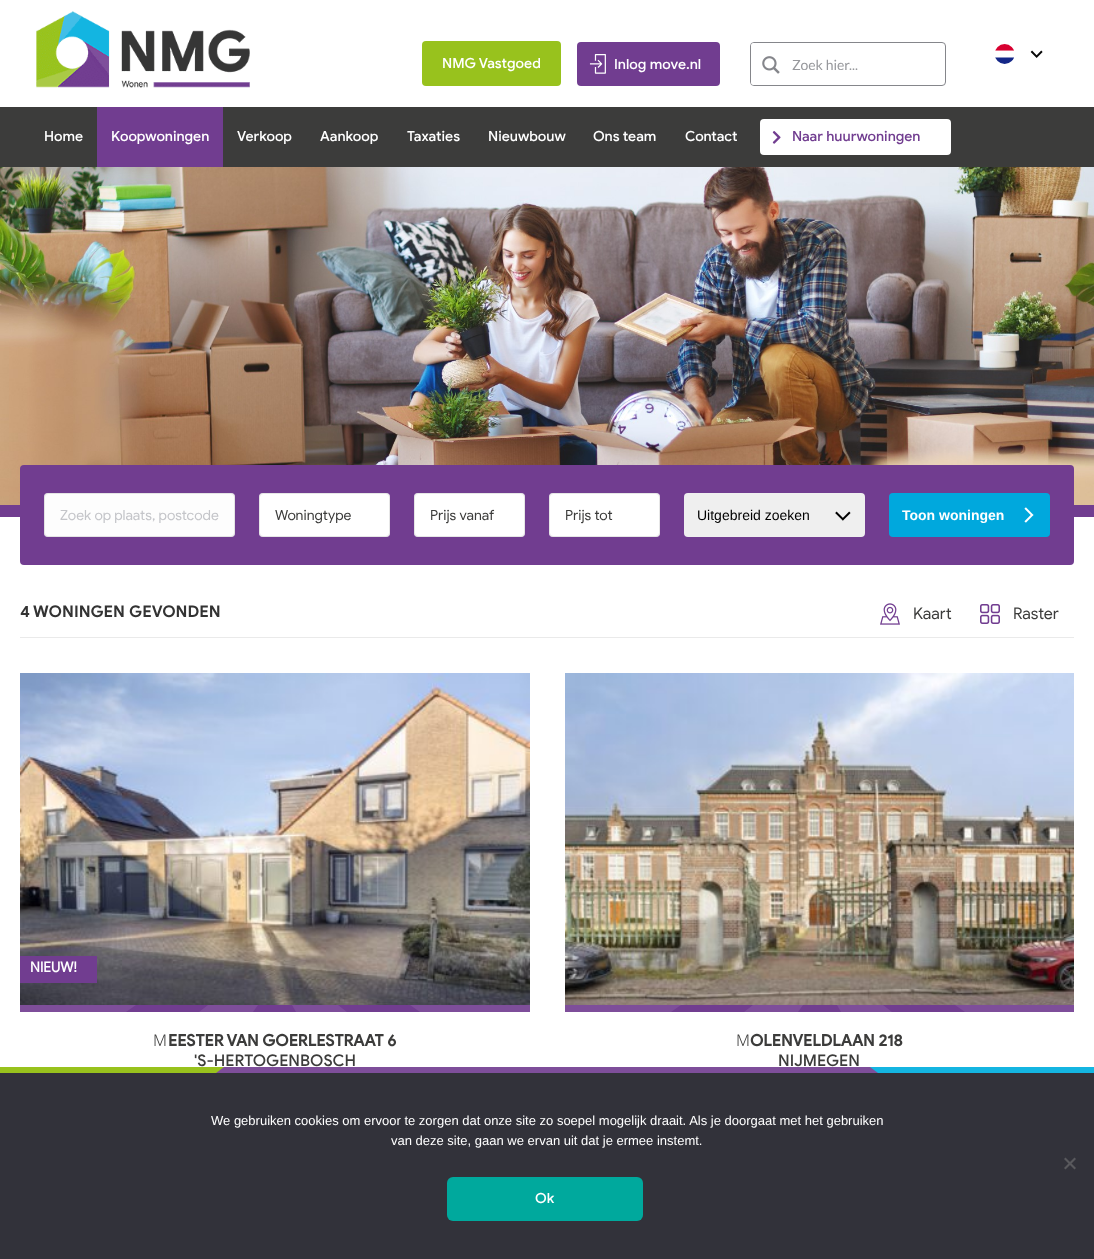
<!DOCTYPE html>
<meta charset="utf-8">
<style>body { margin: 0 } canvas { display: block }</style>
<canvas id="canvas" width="1094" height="1259"></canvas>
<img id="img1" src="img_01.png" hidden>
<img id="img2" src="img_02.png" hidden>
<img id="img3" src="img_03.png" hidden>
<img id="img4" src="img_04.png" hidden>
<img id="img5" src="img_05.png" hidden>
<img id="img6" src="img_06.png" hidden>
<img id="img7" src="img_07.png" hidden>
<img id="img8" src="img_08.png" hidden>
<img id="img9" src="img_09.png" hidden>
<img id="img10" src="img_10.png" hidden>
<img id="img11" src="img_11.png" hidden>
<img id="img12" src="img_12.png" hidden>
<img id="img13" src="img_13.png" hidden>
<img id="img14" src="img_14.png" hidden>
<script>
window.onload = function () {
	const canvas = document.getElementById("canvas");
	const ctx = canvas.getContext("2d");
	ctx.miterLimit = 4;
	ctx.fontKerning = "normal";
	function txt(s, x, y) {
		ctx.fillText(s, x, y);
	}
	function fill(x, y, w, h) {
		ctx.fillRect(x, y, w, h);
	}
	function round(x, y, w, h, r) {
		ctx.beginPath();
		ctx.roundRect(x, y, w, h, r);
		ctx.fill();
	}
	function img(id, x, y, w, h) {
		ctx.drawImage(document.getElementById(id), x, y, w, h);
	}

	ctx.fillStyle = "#FFFFFF";
	fill(0, 0, 1094, 1259);
	ctx.fillStyle = "#3C3C3B";
	fill(0, 107, 1094, 60);
	img("img1", 36, 11, 214, 77);
	ctx.fillStyle = "#98C21D";
	round(422, 41, 139, 45, 4);
	ctx.fillStyle = "#713D90";
	round(577, 42, 143, 44, 4);
	img("img2", 589, 54, 17, 20);
	ctx.beginPath();
	ctx.roundRect(750.5, 42.5, 195, 43, 3.5);
	ctx.strokeStyle = "#85868B";
	ctx.stroke();
	ctx.fillStyle = "#FFFFFF";
	ctx.beginPath();
	ctx.roundRect(751, 43, 40, 42, [3, 0, 0, 3]);
	ctx.fill();
	img("img3", 762, 56, 18, 18);
	img("img4", 995, 44, 19, 20);
	img("img5", 1030, 50, 13, 8);
	ctx.fillStyle = "#713D90";
	fill(97, 107, 126, 60);
	ctx.fillStyle = "#FFFFFF";
	round(760, 119, 191, 36, 4);
	img("img6", 772, 131, 9, 13);
	img("img7", 0, 167, 1094, 338);
	img("img8", 0, 505, 1094, 12);
	ctx.fillStyle = "#713D90";
	round(20, 465, 1054, 100, 4);
	ctx.fillStyle = "#FDFDFD";
	round(44, 493, 191, 44, 4);
	ctx.beginPath();
	ctx.roundRect(44.5, 493.5, 190, 43, 3.5);
	ctx.strokeStyle = "rgba(51, 51, 51, 0.12)";
	ctx.stroke();
	ctx.fillStyle = "#FFFFFF";
	round(259, 493, 131, 44, 4);
	ctx.beginPath();
	ctx.roundRect(259.5, 493.5, 130, 43, 3.5);
	ctx.stroke();
	round(414, 493, 111, 44, 4);
	ctx.beginPath();
	ctx.roundRect(414.5, 493.5, 110, 43, 3.5);
	ctx.stroke();
	round(549, 493, 111, 44, 4);
	ctx.beginPath();
	ctx.roundRect(549.5, 493.5, 110, 43, 3.5);
	ctx.stroke();
	ctx.fillStyle = "#EFEFEF";
	round(684, 493, 181, 44, 4);
	img("img9", 835, 511, 16, 10);
	ctx.fillStyle = "#00A8DD";
	round(889, 493, 161, 44, 4);
	img("img10", 1024, 507, 10, 16);
	img("img11", 880, 603, 20, 22);
	img("img12", 980, 604, 20, 20);
	ctx.fillStyle = "#EAEAEA";
	fill(20, 637, 1054, 1);
	img("img13", 20, 673, 510, 332);
	ctx.fillStyle = "#713D90";
	fill(20, 956, 77, 27);
	ctx.fillStyle = "#7E4E9A";
	fill(20, 1005, 510, 7);
	ctx.fillStyle = "#713D90";
	ctx.beginPath();
	ctx.moveTo(292, 1005);
	ctx.lineTo(258, 1005);
	ctx.lineTo(253, 1012);
	ctx.lineTo(296, 1012);
	ctx.closePath();
	ctx.fill();
	ctx.beginPath();
	ctx.moveTo(338, 1005);
	ctx.lineTo(347, 1012);
	ctx.lineTo(420, 1012);
	ctx.lineTo(410, 1005);
	ctx.closePath();
	ctx.fill();
	ctx.beginPath();
	ctx.moveTo(208, 1005);
	ctx.lineTo(199, 1012);
	ctx.lineTo(126, 1012);
	ctx.lineTo(136, 1005);
	ctx.closePath();
	ctx.fill();
	img("img14", 565, 673, 509, 332);
	ctx.fillStyle = "#7E4E9A";
	fill(565, 1005, 509, 7);
	ctx.fillStyle = "#713D90";
	ctx.beginPath();
	ctx.moveTo(837, 1005);
	ctx.lineTo(803, 1005);
	ctx.lineTo(798, 1012);
	ctx.lineTo(841, 1012);
	ctx.closePath();
	ctx.fill();
	ctx.beginPath();
	ctx.moveTo(883, 1005);
	ctx.lineTo(892, 1012);
	ctx.lineTo(965, 1012);
	ctx.lineTo(955, 1005);
	ctx.closePath();
	ctx.fill();
	ctx.beginPath();
	ctx.moveTo(753, 1005);
	ctx.lineTo(744, 1012);
	ctx.lineTo(671, 1012);
	ctx.lineTo(681, 1005);
	ctx.closePath();
	ctx.fill();
	ctx.fillStyle = "#32323A";
	fill(0, 1073, 1094, 186);
	ctx.fillStyle = "#59595D";
	ctx.beginPath();
	ctx.moveTo(1074.5, 1157.5);
	ctx.lineTo(1076, 1159);
	ctx.lineTo(1065.5, 1169.5);
	ctx.lineTo(1064, 1168);
	ctx.closePath();
	ctx.fill();
	ctx.beginPath();
	ctx.moveTo(1064, 1159);
	ctx.lineTo(1065.5, 1157.5);
	ctx.lineTo(1076, 1168);
	ctx.lineTo(1074.5, 1169.5);
	ctx.closePath();
	ctx.fill();
	ctx.fillStyle = "#98C21D";
	fill(0, 1067, 224, 6);
	ctx.fillStyle = "#14B5E1";
	fill(870, 1067, 224, 6);
	ctx.fillStyle = "#7E4E9A";
	ctx.beginPath();
	ctx.moveTo(878, 1073);
	ctx.lineTo(216, 1073);
	ctx.lineTo(224, 1067);
	ctx.lineTo(870, 1067);
	ctx.closePath();
	ctx.fill();
	ctx.fillStyle = "#00A99D";
	round(447, 1177, 196, 44, 6);
	ctx.font = "500 14px Google Sans";
	ctx.fillStyle = "#FFFFFF";
	txt("NMG Vastgoed", 442, 68);
	txt("Inlog move.nl", 614, 69);
	ctx.font = "14px Lato";
	ctx.fillStyle = "#97989C";
	txt("Zoek hier...", 792, 70);
	ctx.font = "500 14px Google Sans";
	ctx.fillStyle = "#FFFFFF";
	txt("Home", 44, 141);
	txt("Koopwoningen", 111, 141);
	txt("Verkoop", 237, 141);
	txt("Aankoop", 320, 141);
	txt("Taxaties", 407, 141);
	txt("Nieuwbouw", 488, 141);
	txt("Ons team", 593, 141);
	txt("Contact", 685, 141);
	ctx.fillStyle = "#713D90";
	txt("Naar huurwoningen", 792, 141);
	ctx.font = "14px Google Sans";
	ctx.fillStyle = "#C4C5C9";
	txt("Zoek op plaats, postcode", 60, 520);
	ctx.fillStyle = "#3C3C3B";
	txt("Woningtype", 275, 520);
	txt("Prijs vanaf", 430, 520);
	txt("Prijs tot", 565, 520);
	ctx.font = "14px Liberation Sans";
	ctx.fillStyle = "#000000";
	txt("Uitgebreid zoeken", 697, 520);
	ctx.font = "bold 14px Liberation Sans";
	ctx.fillStyle = "#FFFFFF";
	txt("Toon woningen", 902, 520);
	ctx.font = "bold 16px Google Sans";
	ctx.fillStyle = "#333333";
	txt("4", 20, 617);
	txt("WONINGEN", 33, 617);
	txt("GEVONDEN", 129, 617);
	ctx.font = "16px Google Sans";
	ctx.fillStyle = "#3C3C3B";
	txt("Kaart", 913, 619);
	txt("Raster", 1013, 619);
	ctx.font = "bold 14px 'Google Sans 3'";
	ctx.fillStyle = "#FFFFFF";
	txt("NIEUW!", 30, 972);
	ctx.font = "300 16px Noto Sans";
	ctx.fillStyle = "#3C3C3B";
	txt("M", 153, 1046);
	ctx.font = "bold 16px 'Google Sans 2'";
	txt("EESTER VAN GOERLESTRAAT 6", 168, 1046);
	ctx.font = "500 16px Google Sans";
	txt("'S-HERTOGENBOSCH", 194, 1066);
	ctx.font = "300 16px Noto Sans";
	txt("M", 736, 1046);
	ctx.font = "bold 16px 'Google Sans 2'";
	txt("OLENVELDLAAN 218", 750, 1046);
	ctx.font = "500 16px Google Sans";
	txt("NIJMEGEN", 778, 1066);
	ctx.font = "13px Liberation Sans";
	ctx.fillStyle = "#FFFFFF";
	txt("We gebruiken cookies om ervoor te zorgen dat onze site zo soepel mogelijk draait. Als je doorgaat met het gebruiken", 211, 1125);
	txt("van deze site, gaan we ervan uit dat je ermee instemt.", 391, 1145);
	ctx.font = "500 14px Google Sans";
	txt("Ok", 535, 1203);
};
</script>
